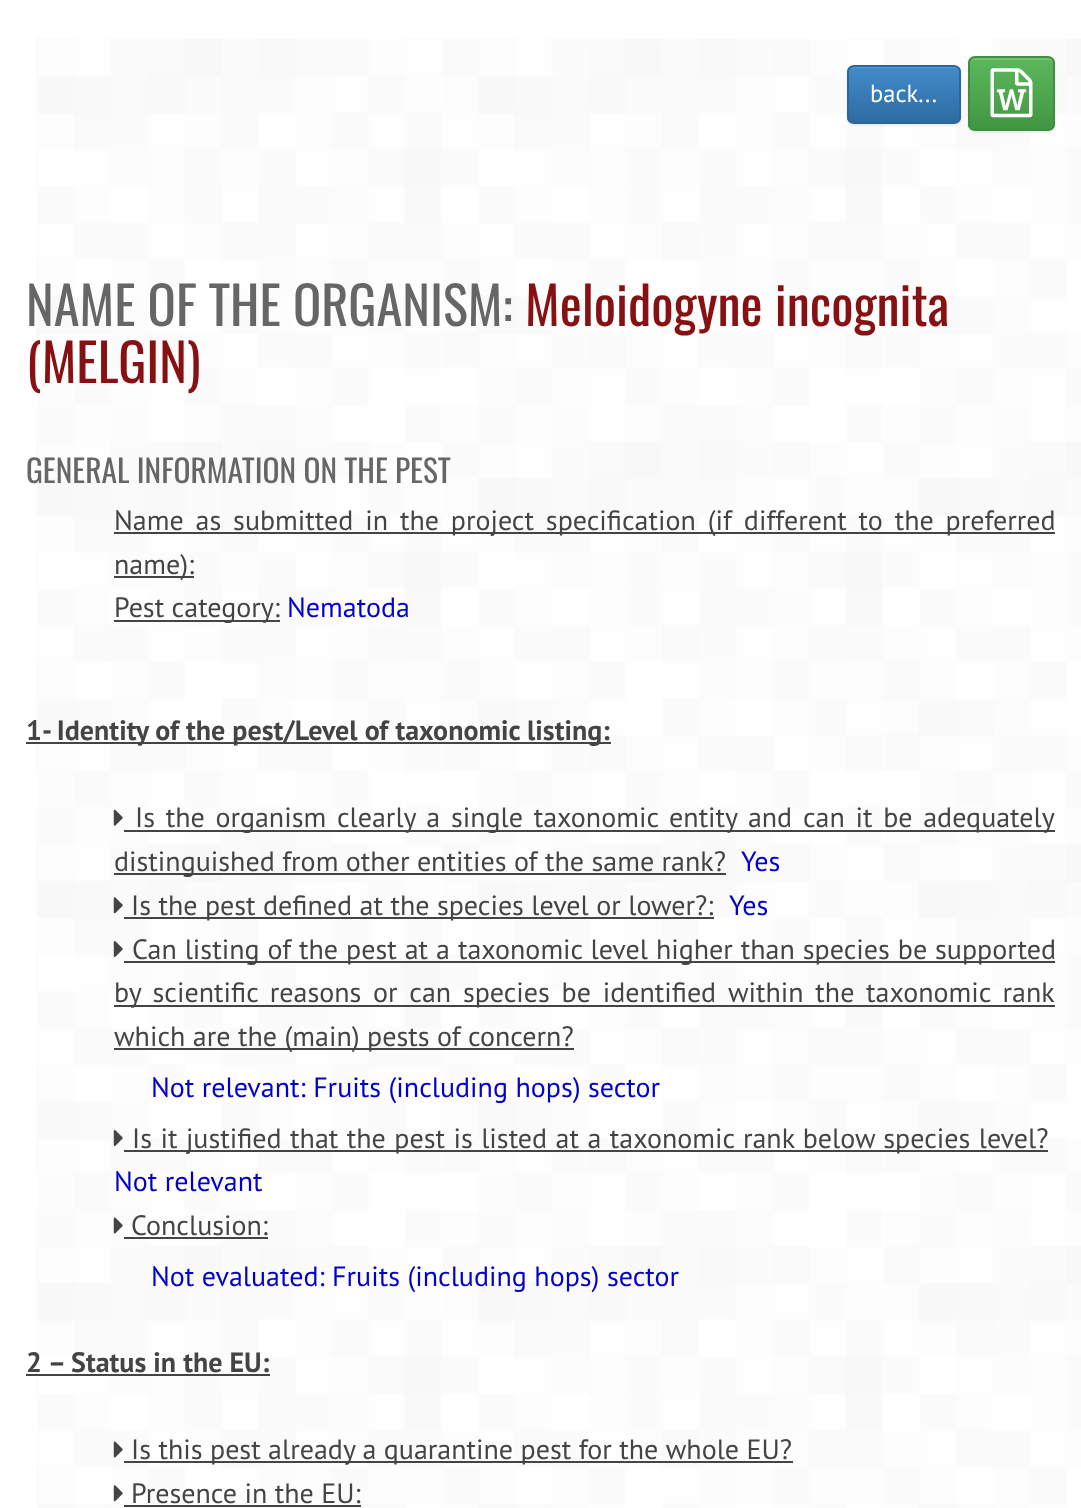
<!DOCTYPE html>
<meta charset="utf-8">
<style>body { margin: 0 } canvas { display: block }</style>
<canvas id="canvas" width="1081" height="1508"></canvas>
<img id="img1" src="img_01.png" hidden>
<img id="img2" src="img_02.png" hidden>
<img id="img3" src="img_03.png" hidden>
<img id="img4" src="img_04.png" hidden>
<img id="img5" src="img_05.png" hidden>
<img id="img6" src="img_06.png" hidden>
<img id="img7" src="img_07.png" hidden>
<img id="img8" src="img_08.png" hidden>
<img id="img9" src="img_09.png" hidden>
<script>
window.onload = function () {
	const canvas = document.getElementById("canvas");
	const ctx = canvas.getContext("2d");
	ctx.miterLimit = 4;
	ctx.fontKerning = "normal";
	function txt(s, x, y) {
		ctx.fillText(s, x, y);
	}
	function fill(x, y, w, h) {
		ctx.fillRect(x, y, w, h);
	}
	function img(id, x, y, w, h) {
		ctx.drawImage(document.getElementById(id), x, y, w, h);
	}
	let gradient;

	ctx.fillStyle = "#FFFFFF";
	fill(0, 0, 1081, 1508);
	img("img1", 36, 38, 1045, 1470);
	ctx.fillStyle = "rgba(0, 0, 0, 0.07)";
	ctx.filter = "blur(1px)";
	ctx.beginPath();
	ctx.roundRect(847, 67, 114, 59, 7);
	ctx.fill();
	ctx.filter = "none";
	ctx.save();
	ctx.beginPath();
	ctx.roundRect(847, 65, 114, 59, 7);
	ctx.clip();
	gradient = ctx.createLinearGradient(904, 67, 904, 123);
	gradient.addColorStop(0, "#428BCA");
	gradient.addColorStop(1, "#2D6CA2");
	ctx.fillStyle = gradient;
	fill(847, 67, 114, 56);
	ctx.restore();
	ctx.fillStyle = "#5E9CD2";
	ctx.beginPath();
	ctx.moveTo(854, 68);
	ctx.lineTo(954, 68);
	ctx.bezierCurveTo(957, 68, 959, 71, 959, 74);
	ctx.lineTo(959, 72);
	ctx.bezierCurveTo(959, 69, 957, 67, 954, 67);
	ctx.lineTo(854, 67);
	ctx.bezierCurveTo(851, 67, 849, 69, 849, 72);
	ctx.lineTo(849, 74);
	ctx.bezierCurveTo(849, 71, 851, 68, 854, 68);
	ctx.closePath();
	ctx.fill();
	ctx.beginPath();
	ctx.roundRect(848, 66, 112, 57, 6);
	ctx.strokeStyle = "#2B669A";
	ctx.lineWidth = 2;
	ctx.stroke();
	ctx.fillStyle = "rgba(0, 0, 0, 0.07)";
	ctx.filter = "blur(1px)";
	ctx.beginPath();
	ctx.roundRect(968, 58, 87, 75, 7);
	ctx.fill();
	ctx.filter = "none";
	ctx.save();
	ctx.beginPath();
	ctx.roundRect(968, 56, 87, 75, 7);
	ctx.clip();
	gradient = ctx.createLinearGradient(1012, 58, 1012, 130);
	gradient.addColorStop(0, "#5CB85C");
	gradient.addColorStop(1, "#419641");
	ctx.fillStyle = gradient;
	fill(968, 58, 87, 72);
	ctx.restore();
	ctx.fillStyle = "#74C274";
	ctx.beginPath();
	ctx.moveTo(975, 60);
	ctx.lineTo(1048, 60);
	ctx.bezierCurveTo(1051, 60, 1054, 62, 1054, 65);
	ctx.bezierCurveTo(1054, 55, 1045, 58, 1037, 58);
	ctx.lineTo(987, 58);
	ctx.bezierCurveTo(979, 58, 970, 55, 970, 65);
	ctx.bezierCurveTo(970, 62, 972, 60, 975, 60);
	ctx.closePath();
	ctx.fill();
	ctx.beginPath();
	ctx.roundRect(969, 57, 85, 73, 6);
	ctx.strokeStyle = "#3E8F3E";
	ctx.stroke();
	img("img2", 990, 68, 43, 50);
	ctx.fillStyle = "#444444";
	fill(114, 532, 941, 2);
	fill(114, 576, 80, 2);
	fill(114, 620, 166, 2);
	fill(26, 742, 585, 2);
	img("img3", 113, 809, 10, 17);
	fill(124, 830, 931, 2);
	fill(114, 873, 612, 2);
	img("img4", 113, 897, 10, 17);
	fill(124, 917, 590, 2);
	img("img5", 113, 941, 10, 16);
	fill(124, 961, 931, 2);
	fill(114, 1005, 941, 2);
	fill(114, 1048, 460, 2);
	img("img6", 113, 1130, 10, 16);
	fill(124, 1150, 924, 2);
	img("img7", 113, 1217, 10, 17);
	fill(124, 1237, 144, 2);
	fill(26, 1374, 244, 2);
	img("img8", 113, 1441, 10, 17);
	fill(124, 1461, 669, 2);
	img("img9", 113, 1485, 10, 17);
	fill(124, 1505, 237, 2);
	ctx.font = "24.5px PT Sans";
	ctx.fillStyle = "#FFFFFF";
	txt("back...", 870, 102);
	ctx.font = "52.5px Oswald";
	ctx.fillStyle = "#666666";
	txt("NAME OF THE ORGANISM:", 26, 326);
	ctx.fillStyle = "#861012";
	txt("Meloidogyne incognita", 525, 326);
	txt("(MELGIN)", 26, 383);
	ctx.font = "31.5px Oswald";
	ctx.fillStyle = "#666666";
	txt("GENERAL INFORMATION ON THE PEST", 26, 483);
	ctx.wordSpacing = "4.4px";
	ctx.font = "28px PT Sans";
	ctx.fillStyle = "#444444";
	txt("Name as submitted in the project specification (if different to the preferred", 114, 530);
	ctx.wordSpacing = "0px";
	txt("name):", 114, 574);
	txt("Pest category:", 114, 617);
	ctx.fillStyle = "#0200C9";
	txt("Nematoda", 287, 617);
	ctx.font = "bold 28px PT Sans";
	ctx.fillStyle = "#444444";
	txt("1- Identity of the pest/Level of taxonomic listing:", 26, 740);
	ctx.wordSpacing = "3.25px";
	ctx.font = "28px PT Sans";
	txt("Is the organism clearly a single taxonomic entity and can it be adequately", 135, 827);
	ctx.wordSpacing = "0px";
	txt("distinguished from other entities of the same rank?", 114, 871);
	ctx.fillStyle = "#0200C9";
	txt("Yes", 741, 871);
	ctx.fillStyle = "#444444";
	txt("Is the pest defined at the species level or lower?:", 131, 915);
	ctx.fillStyle = "#0200C9";
	txt("Yes", 729, 915);
	ctx.wordSpacing = "0.5px";
	ctx.fillStyle = "#444444";
	txt("Can listing of the pest at a taxonomic level higher than species be supported", 132, 959);
	ctx.wordSpacing = "4.25px";
	txt("by scientific reasons or can species be identified within the taxonomic rank", 114, 1002);
	ctx.wordSpacing = "0px";
	txt("which are the (main) pests of concern?", 114, 1046);
	ctx.fillStyle = "#0200C9";
	txt("Not relevant: Fruits (including hops) sector", 151, 1097);
	ctx.wordSpacing = "1px";
	ctx.fillStyle = "#444444";
	txt("Is it justified that the pest is listed at a taxonomic rank below species level?", 132, 1148);
	ctx.wordSpacing = "0px";
	ctx.fillStyle = "#0200C9";
	txt("Not relevant", 114, 1191);
	ctx.fillStyle = "#444444";
	txt("Conclusion:", 131, 1235);
	ctx.fillStyle = "#0200C9";
	txt("Not evaluated: Fruits (including hops) sector", 151, 1286);
	ctx.font = "bold 28px PT Sans";
	ctx.fillStyle = "#444444";
	txt("2 – Status in the EU:", 26, 1372);
	ctx.font = "28px PT Sans";
	txt("Is this pest already a quarantine pest for the whole EU?", 131, 1459);
	txt("Presence in the EU:", 131, 1503);
};
</script>
